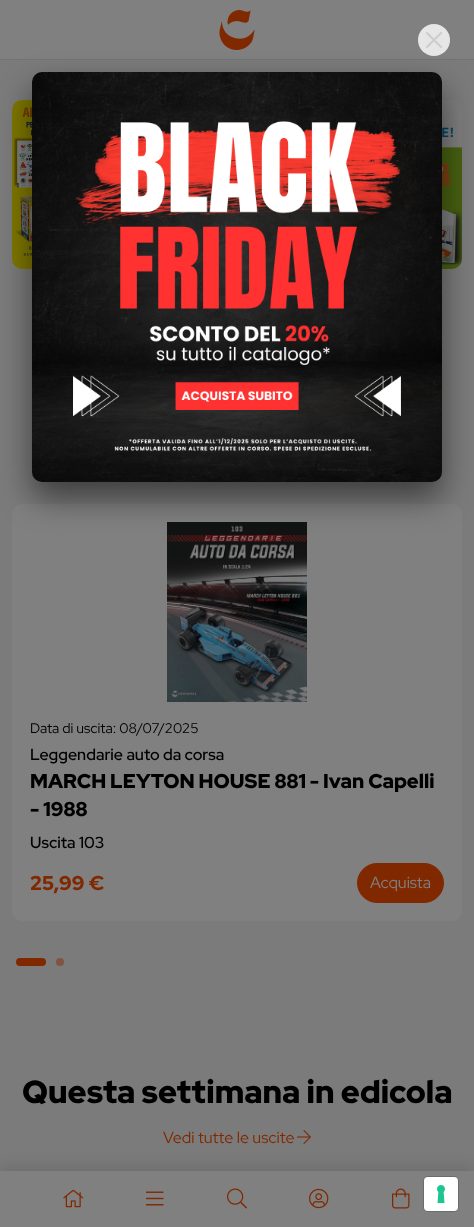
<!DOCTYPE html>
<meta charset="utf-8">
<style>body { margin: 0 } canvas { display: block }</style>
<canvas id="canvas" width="474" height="1227"></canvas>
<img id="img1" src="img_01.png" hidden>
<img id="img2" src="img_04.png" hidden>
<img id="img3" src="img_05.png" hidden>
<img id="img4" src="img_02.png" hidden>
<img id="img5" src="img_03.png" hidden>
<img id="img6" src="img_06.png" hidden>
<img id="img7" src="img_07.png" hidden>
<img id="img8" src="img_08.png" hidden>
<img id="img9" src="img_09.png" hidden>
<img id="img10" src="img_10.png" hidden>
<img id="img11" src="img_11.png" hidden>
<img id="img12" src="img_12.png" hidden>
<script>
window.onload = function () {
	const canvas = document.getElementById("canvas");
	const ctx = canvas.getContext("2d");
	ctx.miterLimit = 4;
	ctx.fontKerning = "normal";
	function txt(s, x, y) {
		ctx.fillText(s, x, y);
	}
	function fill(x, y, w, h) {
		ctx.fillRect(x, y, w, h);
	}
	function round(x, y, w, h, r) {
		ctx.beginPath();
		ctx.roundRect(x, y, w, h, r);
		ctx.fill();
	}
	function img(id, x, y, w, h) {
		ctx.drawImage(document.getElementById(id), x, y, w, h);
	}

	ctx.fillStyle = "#7B7B7B";
	fill(0, 0, 474, 1227);
	ctx.fillStyle = "#808080";
	fill(0, 0, 474, 59);
	img("img1", 219, 10, 36, 40);
	ctx.fillStyle = "#737373";
	fill(0, 59, 474, 1);
	img("img2", 12, 100, 450, 169);
	ctx.fillStyle = "#808080";
	round(12, 504, 450, 417, 10);
	img("img3", 167, 522, 140, 180);
	ctx.fillStyle = "rgba(0, 0, 0, 0.5)";
	ctx.filter = "blur(16px)";
	ctx.beginPath();
	ctx.roundRect(32, 88, 410, 410, 10);
	ctx.fill();
	ctx.filter = "none";
	img("img4", 426, 32, 16, 16);
	ctx.fillStyle = "rgba(255, 255, 255, 0.8)";
	ctx.beginPath();
	ctx.arc(434, 40, 16, 0, Math.PI * 2);
	ctx.fill();
	img("img5", 32, 72, 410, 410);
	ctx.fillStyle = "#802900";
	ctx.beginPath();
	ctx.roundRect(357.5, 863.5, 86, 39, 19.5);
	ctx.fill();
	ctx.strokeStyle = "#802900";
	ctx.stroke();
	round(16, 958, 30, 8, 4);
	ctx.fillStyle = "#805440";
	ctx.beginPath();
	ctx.arc(60, 962, 4, 0, Math.PI * 2);
	ctx.fill();
	img("img6", 297, 1130, 14, 14);
	ctx.fillStyle = "rgba(0, 0, 0, 0.1)";
	ctx.filter = "blur(7.5px)";
	ctx.beginPath();
	ctx.rect(0, 1166, 474, 56);
	ctx.fill();
	ctx.filter = "none";
	ctx.fillStyle = "#808080";
	fill(0, 1171, 474, 56);
	img("img7", 63, 1189, 21, 19);
	img("img8", 146, 1191, 18, 15);
	img("img9", 227, 1188, 20, 21);
	img("img10", 309, 1188, 20, 21);
	img("img11", 392, 1188, 18, 21);
	ctx.beginPath();
	ctx.roundRect(423.5, 1176.5, 35, 35, 4.5);
	ctx.strokeStyle = "#6C6C6C";
	ctx.stroke();
	ctx.fillStyle = "#FFFFFF";
	round(424, 1177, 34, 34, 4);
	img("img12", 437, 1185, 8, 18);
	ctx.font = "14px Red Hat Display";
	ctx.fillStyle = "#000000";
	txt("Data di uscita: 08/07/2025", 30, 733);
	ctx.font = "600 16px Red Hat Display";
	txt("Leggendarie auto da corsa", 30, 760);
	ctx.font = "900 20px Red Hat Display";
	txt("MARCH LEYTON HOUSE 881 - Ivan Capelli", 30, 788);
	txt("- 1988", 30, 816);
	ctx.font = "600 16px Red Hat Display";
	txt("Uscita 103", 30, 848);
	ctx.font = "900 20px Red Hat Display";
	ctx.fillStyle = "#802900";
	txt("25,99 €", 30, 890);
	ctx.font = "16px Red Hat Display";
	ctx.fillStyle = "#808080";
	txt("Acquista", 370, 888);
	ctx.font = "900 32px Red Hat Display";
	ctx.fillStyle = "#000000";
	txt("Questa settimana in edicola", 22, 1103);
	ctx.font = "16px Red Hat Display";
	ctx.fillStyle = "#802900";
	txt("Vedi tutte le uscite", 163, 1143);
};
</script>
